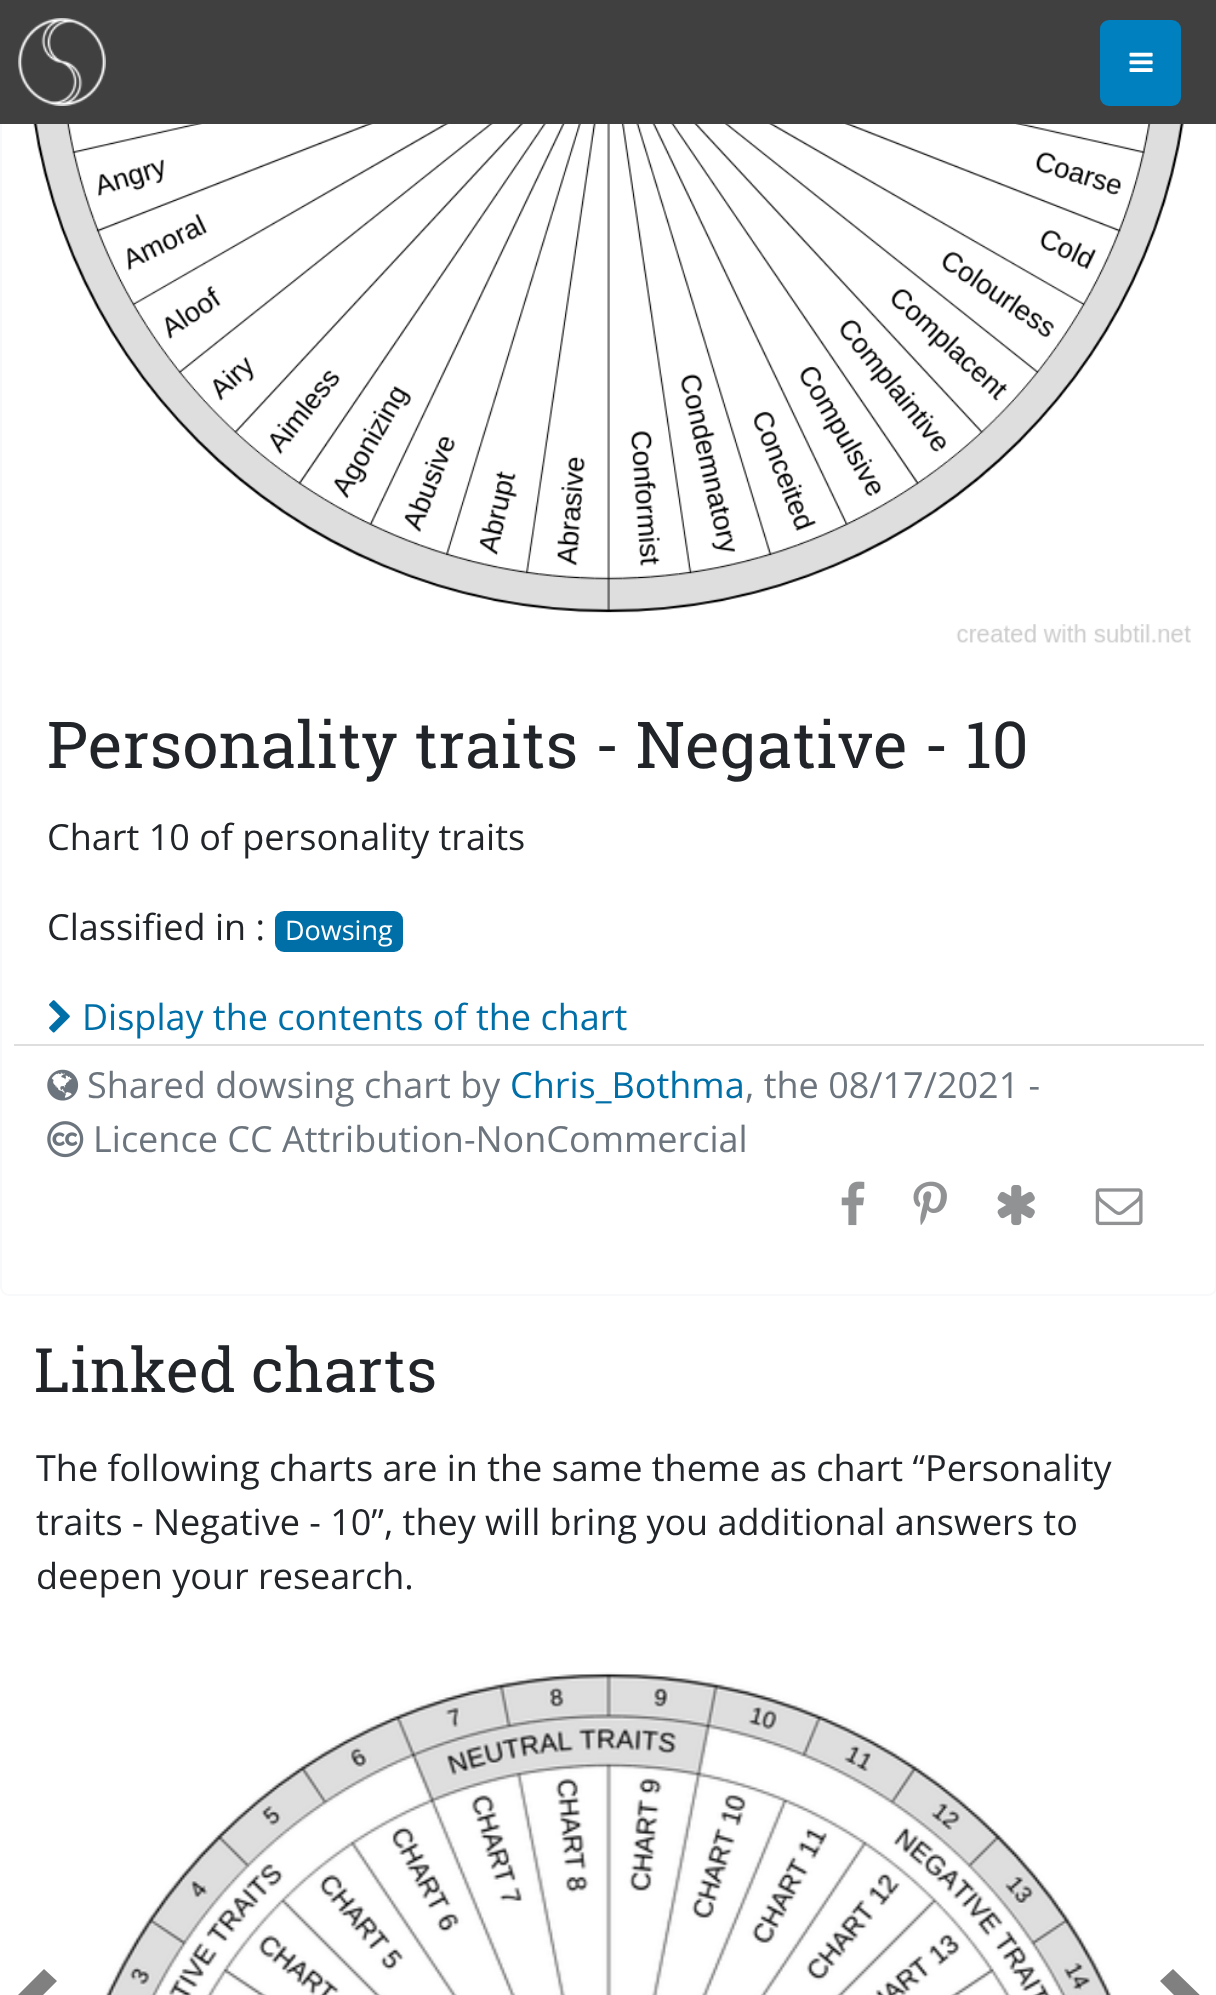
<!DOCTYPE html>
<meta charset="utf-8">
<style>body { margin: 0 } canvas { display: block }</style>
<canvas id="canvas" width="1216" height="1995"></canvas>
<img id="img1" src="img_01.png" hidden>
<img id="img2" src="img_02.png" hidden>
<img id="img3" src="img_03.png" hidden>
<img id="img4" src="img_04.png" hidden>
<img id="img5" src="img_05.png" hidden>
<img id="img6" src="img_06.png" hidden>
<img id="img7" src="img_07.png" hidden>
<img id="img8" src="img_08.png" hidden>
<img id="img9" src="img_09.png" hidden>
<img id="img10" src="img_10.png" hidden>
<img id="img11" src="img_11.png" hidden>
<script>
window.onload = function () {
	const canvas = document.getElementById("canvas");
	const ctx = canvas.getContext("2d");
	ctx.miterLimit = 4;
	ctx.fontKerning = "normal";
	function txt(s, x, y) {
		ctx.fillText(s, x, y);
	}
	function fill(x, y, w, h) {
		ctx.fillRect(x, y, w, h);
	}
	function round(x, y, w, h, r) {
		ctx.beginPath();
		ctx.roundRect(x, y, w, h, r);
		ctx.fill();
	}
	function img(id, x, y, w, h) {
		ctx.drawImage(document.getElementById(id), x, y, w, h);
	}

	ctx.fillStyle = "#FFFFFF";
	fill(0, 0, 1216, 1995);
	ctx.beginPath();
	ctx.roundRect(1, -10, 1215, 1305, 8);
	ctx.strokeStyle = "#F8F9FA";
	ctx.lineWidth = 2;
	ctx.stroke();
	ctx.fillStyle = "#404040";
	fill(0, 0, 1216, 124);
	img("img1", 18, 18, 88, 88);
	ctx.fillStyle = "#0180C0";
	round(1100, 20, 81, 86, 9);
	img("img2", 1129, 52, 24, 20);
	img("img3", 26, 124, 1165, 519);
	ctx.fillStyle = "#006FA8";
	round(275, 911, 128, 41, 9);
	img("img4", 49, 1000, 21, 33);
	ctx.fillStyle = "#DEDEDE";
	fill(14, 1044, 1190, 2);
	img("img5", 47, 1069, 32, 32);
	img("img6", 47, 1121, 37, 37);
	img("img7", 841, 1181, 24, 45);
	img("img8", 913, 1181, 34, 44);
	img("img9", 997, 1185, 38, 41);
	img("img10", 1095, 1188, 48, 38);
	img("img11", 105, 1672, 1007, 323);
	ctx.fillStyle = "#808080";
	ctx.beginPath();
	ctx.moveTo(44, 1969);
	ctx.lineTo(11, 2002);
	ctx.lineTo(44, 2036);
	ctx.lineTo(57, 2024);
	ctx.lineTo(36, 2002);
	ctx.lineTo(57, 1981);
	ctx.closePath();
	ctx.fill();
	ctx.beginPath();
	ctx.moveTo(1173, 1969);
	ctx.lineTo(1160, 1981);
	ctx.lineTo(1181, 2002);
	ctx.lineTo(1160, 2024);
	ctx.lineTo(1173, 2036);
	ctx.lineTo(1207, 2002);
	ctx.closePath();
	ctx.fill();
	ctx.font = "64.75px Roboto Slab";
	ctx.fillStyle = "#212529";
	txt("Personality traits - Negative - 10", 47, 768);
	ctx.font = "36px Open Sans";
	txt("Chart 10 of personality traits", 47, 850);
	txt("Classified in :", 47, 940);
	ctx.font = "27px Open Sans";
	ctx.fillStyle = "#FFFFFF";
	txt("Dowsing", 285, 940);
	ctx.font = "36px Open Sans";
	ctx.fillStyle = "#006FA8";
	txt("Display the contents of the chart", 82, 1030);
	ctx.fillStyle = "#6C757D";
	txt("Shared dowsing chart by", 87, 1098);
	ctx.fillStyle = "#006FA8";
	txt("Chris_Bothma", 510, 1098);
	ctx.fillStyle = "#6C757D";
	txt(", the 08/17/2021 -", 745, 1098);
	txt("Licence CC Attribution-NonCommercial", 93, 1152);
	ctx.font = "61.25px Roboto Slab";
	ctx.fillStyle = "#212529";
	txt("Linked charts", 34, 1392);
	ctx.font = "36px Open Sans";
	txt("The following charts are in the same theme as chart “Personality", 36, 1481);
	txt("traits - Negative - 10”, they will bring you additional answers to", 36, 1535);
	txt("deepen your research.", 36, 1589);
};
</script>
